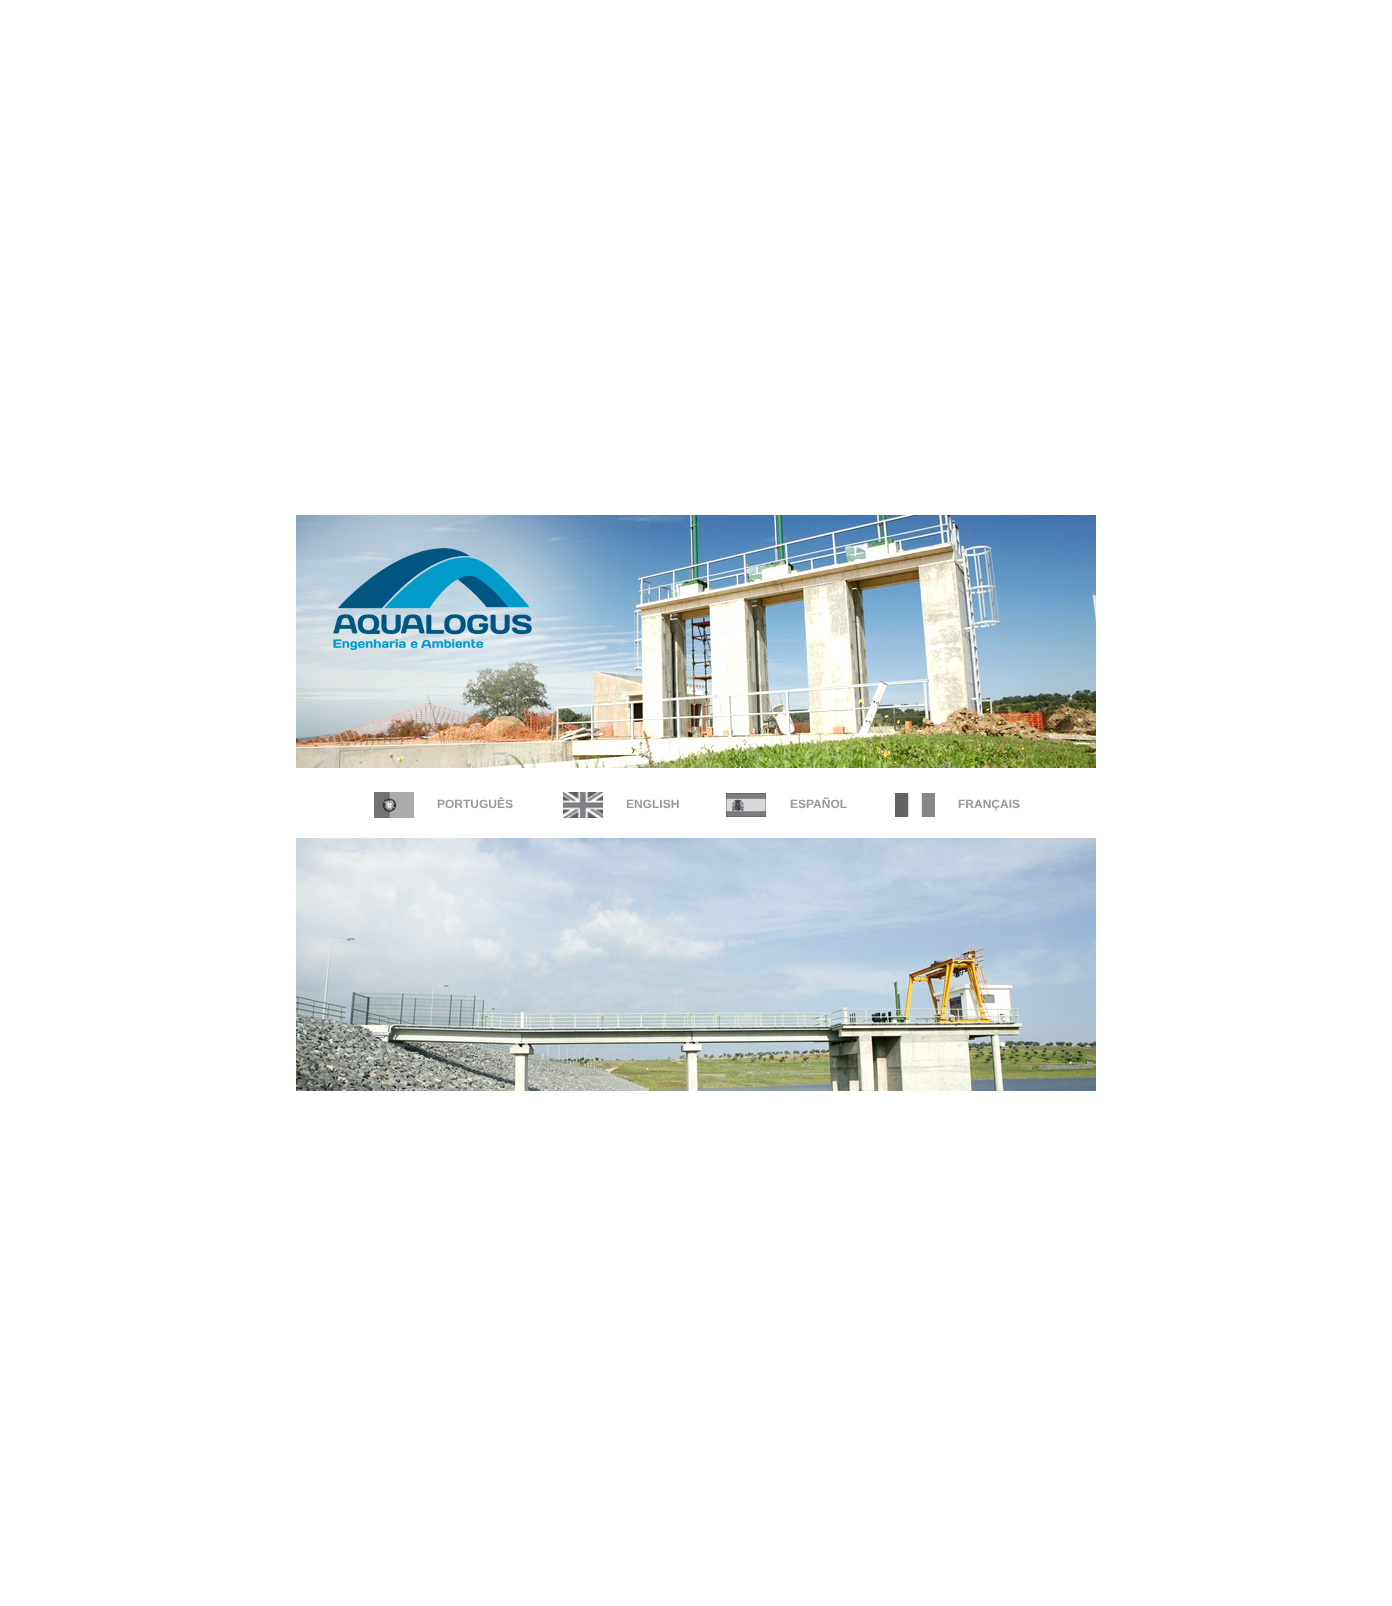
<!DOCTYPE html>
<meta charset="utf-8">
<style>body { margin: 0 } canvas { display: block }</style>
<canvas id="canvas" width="1392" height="1606"></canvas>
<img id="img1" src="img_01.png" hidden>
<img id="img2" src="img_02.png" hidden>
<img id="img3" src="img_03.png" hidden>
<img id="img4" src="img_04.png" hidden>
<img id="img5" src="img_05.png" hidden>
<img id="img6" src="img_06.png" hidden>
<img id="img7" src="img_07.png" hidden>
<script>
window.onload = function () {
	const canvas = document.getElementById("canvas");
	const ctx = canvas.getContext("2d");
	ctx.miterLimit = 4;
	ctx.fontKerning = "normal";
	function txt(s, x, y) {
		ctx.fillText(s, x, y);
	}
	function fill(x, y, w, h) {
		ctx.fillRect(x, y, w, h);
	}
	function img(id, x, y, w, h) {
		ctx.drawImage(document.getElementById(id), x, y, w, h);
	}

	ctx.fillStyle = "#FFFFFF";
	fill(0, 0, 1392, 1606);
	img("img1", 296, 515, 800, 253);
	img("img2", 333, 548, 199, 102);
	img("img3", 374, 792, 40, 26);
	img("img4", 563, 792, 40, 26);
	img("img5", 726, 793, 40, 24);
	img("img6", 895, 793, 40, 24);
	img("img7", 296, 838, 800, 253);
	ctx.font = "bold 12px Liberation Sans";
	ctx.fillStyle = "#999999";
	txt("PORTUGUÊS", 437, 808);
	txt("ENGLISH", 626, 808);
	txt("ESPAÑOL", 790, 808);
	txt("FRANÇAIS", 958, 808);
};
</script>
